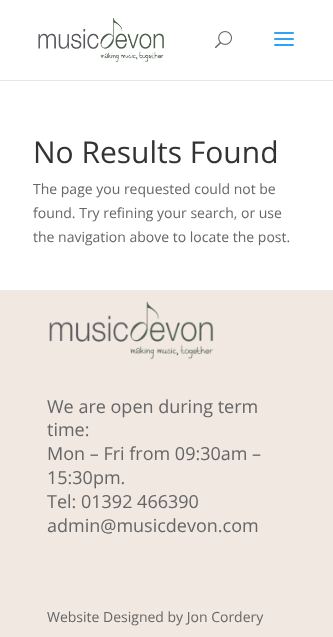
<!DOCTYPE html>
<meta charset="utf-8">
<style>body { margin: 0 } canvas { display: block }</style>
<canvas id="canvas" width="333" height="637"></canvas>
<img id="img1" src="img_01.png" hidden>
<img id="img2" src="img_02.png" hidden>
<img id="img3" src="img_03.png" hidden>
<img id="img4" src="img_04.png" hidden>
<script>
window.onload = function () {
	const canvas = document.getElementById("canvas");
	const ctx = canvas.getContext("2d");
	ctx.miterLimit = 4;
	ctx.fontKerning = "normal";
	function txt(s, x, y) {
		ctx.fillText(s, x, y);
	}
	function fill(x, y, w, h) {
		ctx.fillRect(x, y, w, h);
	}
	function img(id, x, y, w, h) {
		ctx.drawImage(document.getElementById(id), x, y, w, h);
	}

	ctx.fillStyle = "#FFFFFF";
	fill(0, 0, 333, 637);
	ctx.fillStyle = "#E6E6E6";
	fill(0, 80, 333, 1);
	img("img1", 38, 18, 126, 44);
	img("img2", 215, 31, 17, 18);
	img("img3", 274, 32, 20, 14);
	ctx.fillStyle = "#F0E8E1";
	fill(0, 290, 333, 347);
	img("img4", 49, 301, 165, 59);
	ctx.font = "30px Open Sans";
	ctx.fillStyle = "#333333";
	txt("No Results Found", 33, 163);
	ctx.font = "14px Open Sans";
	ctx.fillStyle = "#666666";
	txt("The page you requested could not be", 33, 194);
	txt("found. Try refining your search, or use", 33, 218);
	txt("the navigation above to locate the post.", 33, 242);
	ctx.font = "18px Open Sans";
	txt("We are open during term", 47, 413);
	txt("time:", 47, 436);
	txt("Mon – Fri from 09:30am –", 47, 460);
	txt("15:30pm.", 47, 484);
	txt("Tel: 01392 466390", 47, 508);
	txt("admin@musicdevon.com", 47, 532);
	ctx.font = "14px Open Sans";
	txt("Website Designed by Jon Cordery", 47, 622);
};
</script>
